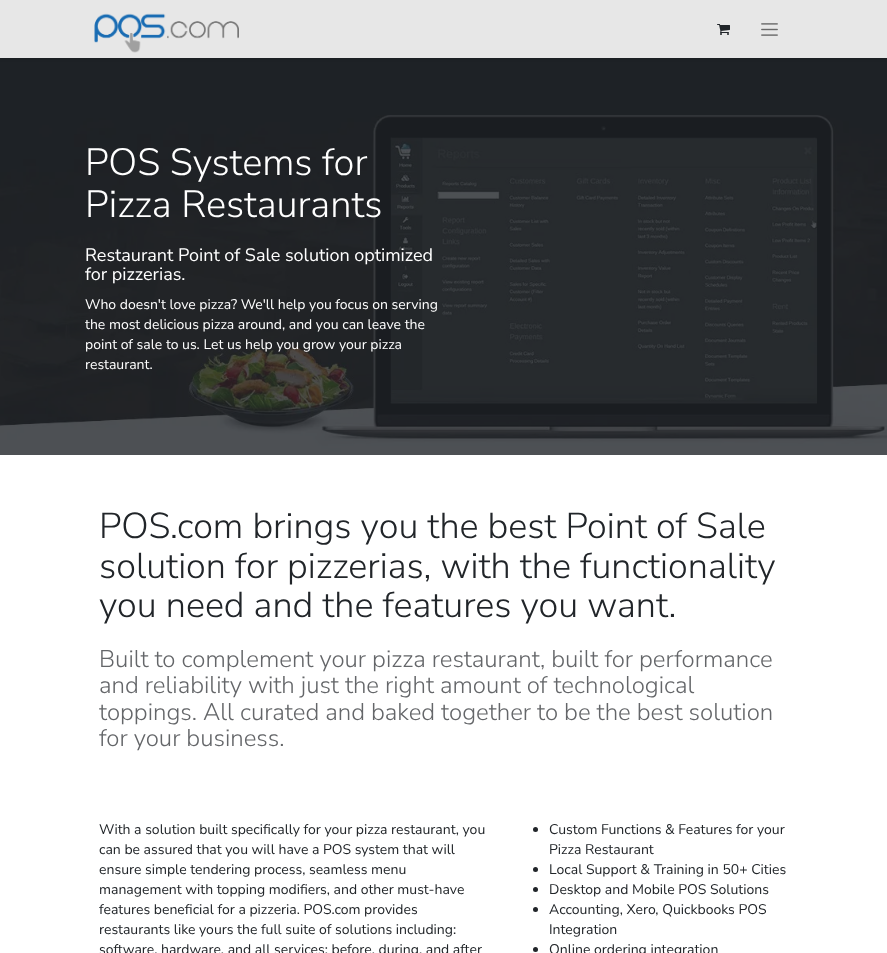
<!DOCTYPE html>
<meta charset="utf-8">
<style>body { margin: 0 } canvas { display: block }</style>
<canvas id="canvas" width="887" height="953"></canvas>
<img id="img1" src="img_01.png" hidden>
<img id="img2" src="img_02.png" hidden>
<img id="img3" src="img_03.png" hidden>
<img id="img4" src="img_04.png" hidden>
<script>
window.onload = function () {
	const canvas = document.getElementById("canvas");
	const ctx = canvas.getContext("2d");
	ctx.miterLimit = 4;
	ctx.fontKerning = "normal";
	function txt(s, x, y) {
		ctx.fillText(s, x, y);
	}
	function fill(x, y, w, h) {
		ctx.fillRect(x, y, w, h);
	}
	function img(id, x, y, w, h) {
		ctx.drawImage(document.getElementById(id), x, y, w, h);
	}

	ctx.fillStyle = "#FFFFFF";
	fill(0, 0, 887, 953);
	ctx.fillStyle = "#1E2226";
	fill(0, 58, 887, 57);
	ctx.fillStyle = "rgba(0, 0, 0, 0.1)";
	ctx.filter = "blur(1.5px)";
	ctx.beginPath();
	ctx.rect(0, 1, 887, 58);
	ctx.fill();
	ctx.filter = "none";
	ctx.fillStyle = "#E7E7E7";
	fill(0, 0, 887, 58);
	img("img1", 94, 13, 145, 40);
	img("img2", 717, 24, 13, 11);
	img("img3", 761, 23, 17, 13);
	img("img4", 0, 115, 887, 340);
	ctx.fillStyle = "#212529";
	ctx.beginPath();
	ctx.arc(535.5, 829.5, 2.5, 0, Math.PI * 2);
	ctx.fill();
	ctx.beginPath();
	ctx.arc(535.5, 869.5, 2.5, 0, Math.PI * 2);
	ctx.fill();
	ctx.beginPath();
	ctx.arc(535.5, 889.5, 2.5, 0, Math.PI * 2);
	ctx.fill();
	ctx.beginPath();
	ctx.arc(535.5, 909.5, 2.5, 0, Math.PI * 2);
	ctx.fill();
	ctx.beginPath();
	ctx.arc(535.5, 949.5, 2.5, 0, Math.PI * 2);
	ctx.fill();
	ctx.font = "300 38px Nunito Sans";
	ctx.fillStyle = "#FFFFFF";
	txt("POS Systems for", 85, 175);
	txt("Pizza Restaurants", 85, 217);
	ctx.font = "18px Nunito Sans";
	txt("Restaurant Point of Sale solution optimized", 85, 261);
	txt("for pizzerias.", 85, 280);
	ctx.font = "14px Nunito Sans";
	txt("Who doesn't love pizza? We'll help you focus on serving", 85, 309);
	txt("the most delicious pizza around, and you can leave the", 85, 329);
	txt("point of sale to us. Let us help you grow your pizza", 85, 349);
	txt("restaurant.", 85, 369);
	ctx.font = "300 36px Nunito Sans";
	ctx.fillStyle = "#212529";
	txt("POS.com brings you the best Point of Sale", 99, 538);
	txt("solution for pizzerias, with the functionality", 99, 578);
	txt("you need and the features you want.", 99, 617);
	ctx.font = "300 24px Nunito Sans";
	ctx.fillStyle = "#646669";
	txt("Built to complement your pizza restaurant, built for performance", 99, 667);
	txt("and reliability with just the right amount of technological", 99, 693);
	txt("toppings. All curated and baked together to be the best solution", 99, 720);
	txt("for your business.", 99, 746);
	ctx.font = "14px Nunito Sans";
	ctx.fillStyle = "#212529";
	txt("With a solution built specifically for your pizza restaurant, you", 99, 834);
	txt("can be assured that you will have a POS system that will", 99, 854);
	txt("ensure simple tendering process, seamless menu", 99, 874);
	txt("management with topping modifiers, and other must-have", 99, 894);
	txt("features beneficial for a pizzeria. POS.com provides", 99, 914);
	txt("restaurants like yours the full suite of solutions including:", 99, 934);
	txt("software, hardware, and all services; before, during, and after", 99, 954);
	txt("Custom Functions & Features for your", 549, 834);
	txt("Pizza Restaurant", 549, 854);
	txt("Local Support & Training in 50+ Cities", 549, 874);
	txt("Desktop and Mobile POS Solutions", 549, 894);
	txt("Accounting, Xero, Quickbooks POS", 549, 914);
	txt("Integration", 549, 934);
	txt("Online ordering integration", 549, 954);
};
</script>
